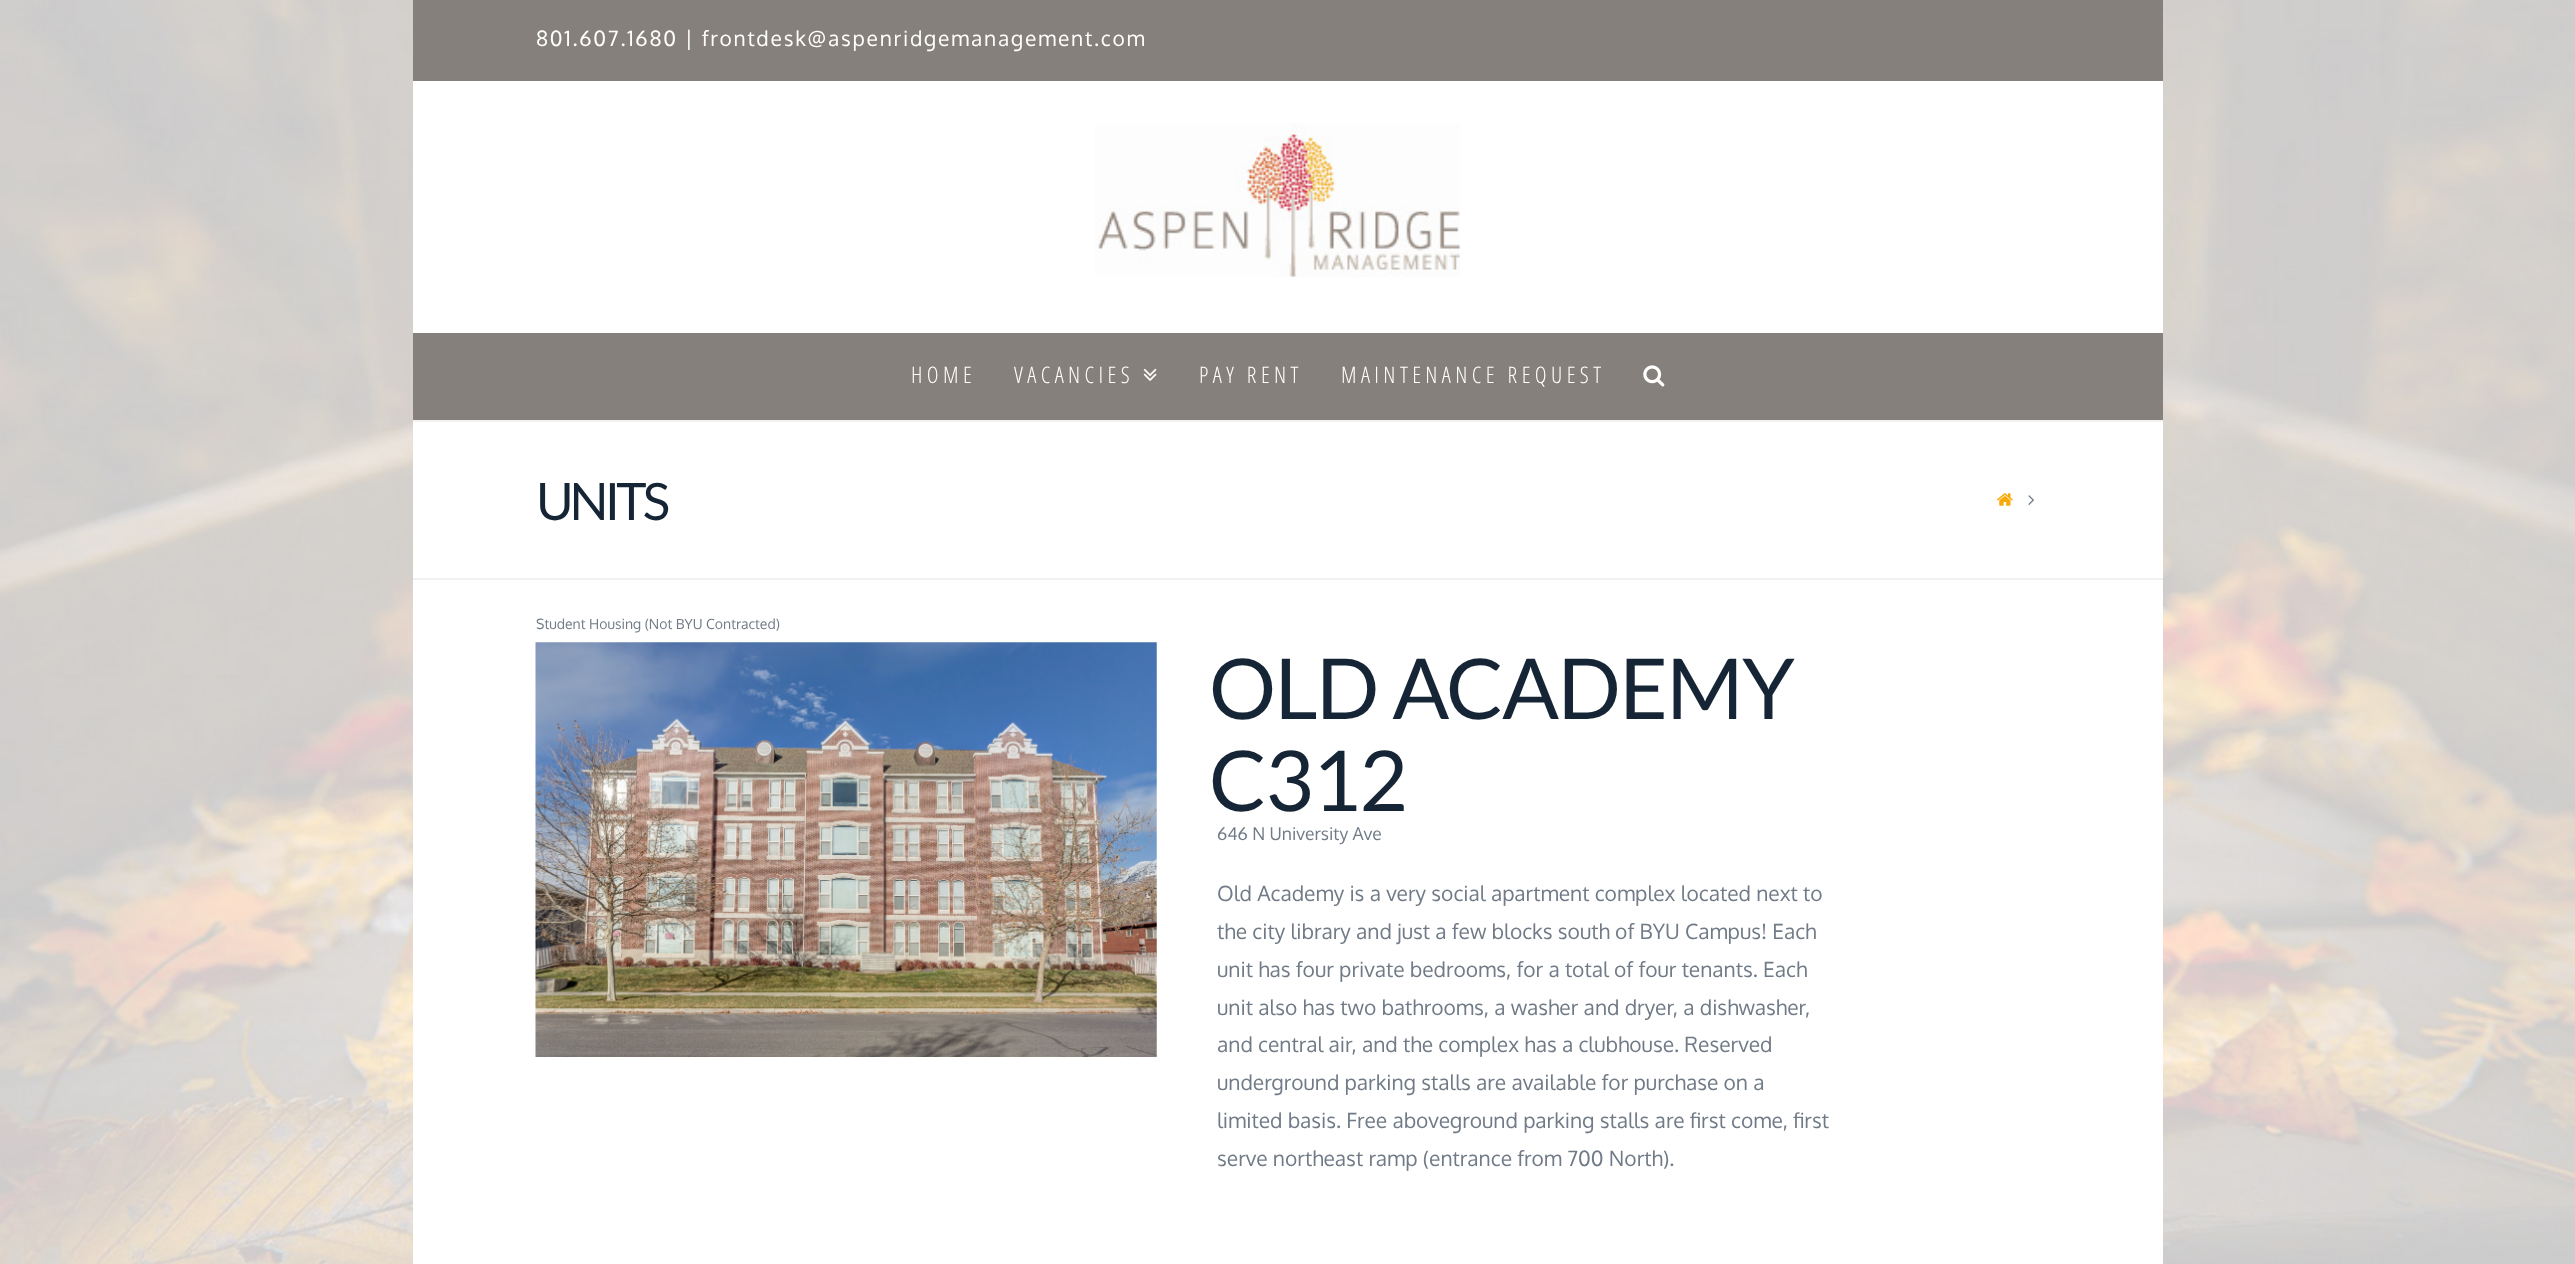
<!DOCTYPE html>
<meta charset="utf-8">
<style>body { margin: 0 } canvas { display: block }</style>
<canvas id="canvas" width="2575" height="1264"></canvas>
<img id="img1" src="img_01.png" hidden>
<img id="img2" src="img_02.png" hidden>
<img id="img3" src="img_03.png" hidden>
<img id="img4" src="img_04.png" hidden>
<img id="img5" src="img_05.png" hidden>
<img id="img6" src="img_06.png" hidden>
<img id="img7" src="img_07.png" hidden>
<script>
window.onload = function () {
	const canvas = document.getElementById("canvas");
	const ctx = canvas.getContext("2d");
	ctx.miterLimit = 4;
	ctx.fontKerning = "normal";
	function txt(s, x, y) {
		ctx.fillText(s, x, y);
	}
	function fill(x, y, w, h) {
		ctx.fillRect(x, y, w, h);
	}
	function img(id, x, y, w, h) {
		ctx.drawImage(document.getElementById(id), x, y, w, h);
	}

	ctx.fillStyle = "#FFFFFF";
	fill(0, 0, 2575, 1264);
	img("img1", 0, 0, 2575, 1264);
	fill(413, 81, 1750, 1183);
	ctx.fillStyle = "#86807C";
	fill(413, 0, 1750, 81);
	img("img2", 1095, 123, 365, 154);
	fill(413, 333, 1750, 87);
	img("img3", 1143, 368, 14, 13);
	img("img4", 1643, 365, 22, 22);
	ctx.fillStyle = "#F2F2F2";
	fill(413, 420, 1750, 2);
	fill(413, 578, 1750, 2);
	img("img5", 1997, 493, 16, 13);
	img("img6", 2028, 495, 6, 10);
	img("img7", 535, 642, 622, 415);
	ctx.letterSpacing = "1.75px";
	ctx.font = "21px Oxygen";
	ctx.fillStyle = "#FFFFFF";
	txt("801.607.1680 | frontdesk@aspenridgemanagement.com", 536, 46);
	ctx.letterSpacing = "4.4px";
	ctx.font = "300 22.75px Open Sans Condensed";
	txt("HOME", 911, 383);
	txt("VACANCIES", 1014, 383);
	txt("PAY RENT", 1199, 383);
	txt("MAINTENANCE REQUEST", 1341, 383);
	ctx.letterSpacing = "-4px";
	ctx.font = "51.5px Lato";
	ctx.fillStyle = "#162536";
	txt("UNITS", 536, 520);
	ctx.letterSpacing = "0px";
	ctx.font = "14px Oxygen";
	ctx.fillStyle = "#717B87";
	txt("Student Housing (Not BYU Contracted)", 536, 629);
	ctx.letterSpacing = "-1.6px";
	ctx.font = "84px Lato";
	ctx.fillStyle = "#162536";
	txt("OLD ACADEMY", 1209, 719);
	txt("C312", 1209, 811);
	ctx.letterSpacing = "0px";
	ctx.font = "17.5px Oxygen";
	ctx.fillStyle = "#717B87";
	txt("646 N University Ave", 1217, 840);
	ctx.font = "21px Oxygen";
	txt("Old Academy is a very social apartment complex located next to", 1217, 901);
	txt("the city library and just a few blocks south of BYU Campus! Each", 1217, 939);
	txt("unit has four private bedrooms, for a total of four tenants. Each", 1217, 977);
	txt("unit also has two bathrooms, a washer and dryer, a dishwasher,", 1217, 1015);
	txt("and central air, and the complex has a clubhouse. Reserved", 1217, 1052);
	txt("underground parking stalls are available for purchase on a", 1217, 1090);
	txt("limited basis. Free aboveground parking stalls are first come, first", 1217, 1128);
	txt("serve northeast ramp (entrance from 700 North).", 1217, 1166);
};
</script>
